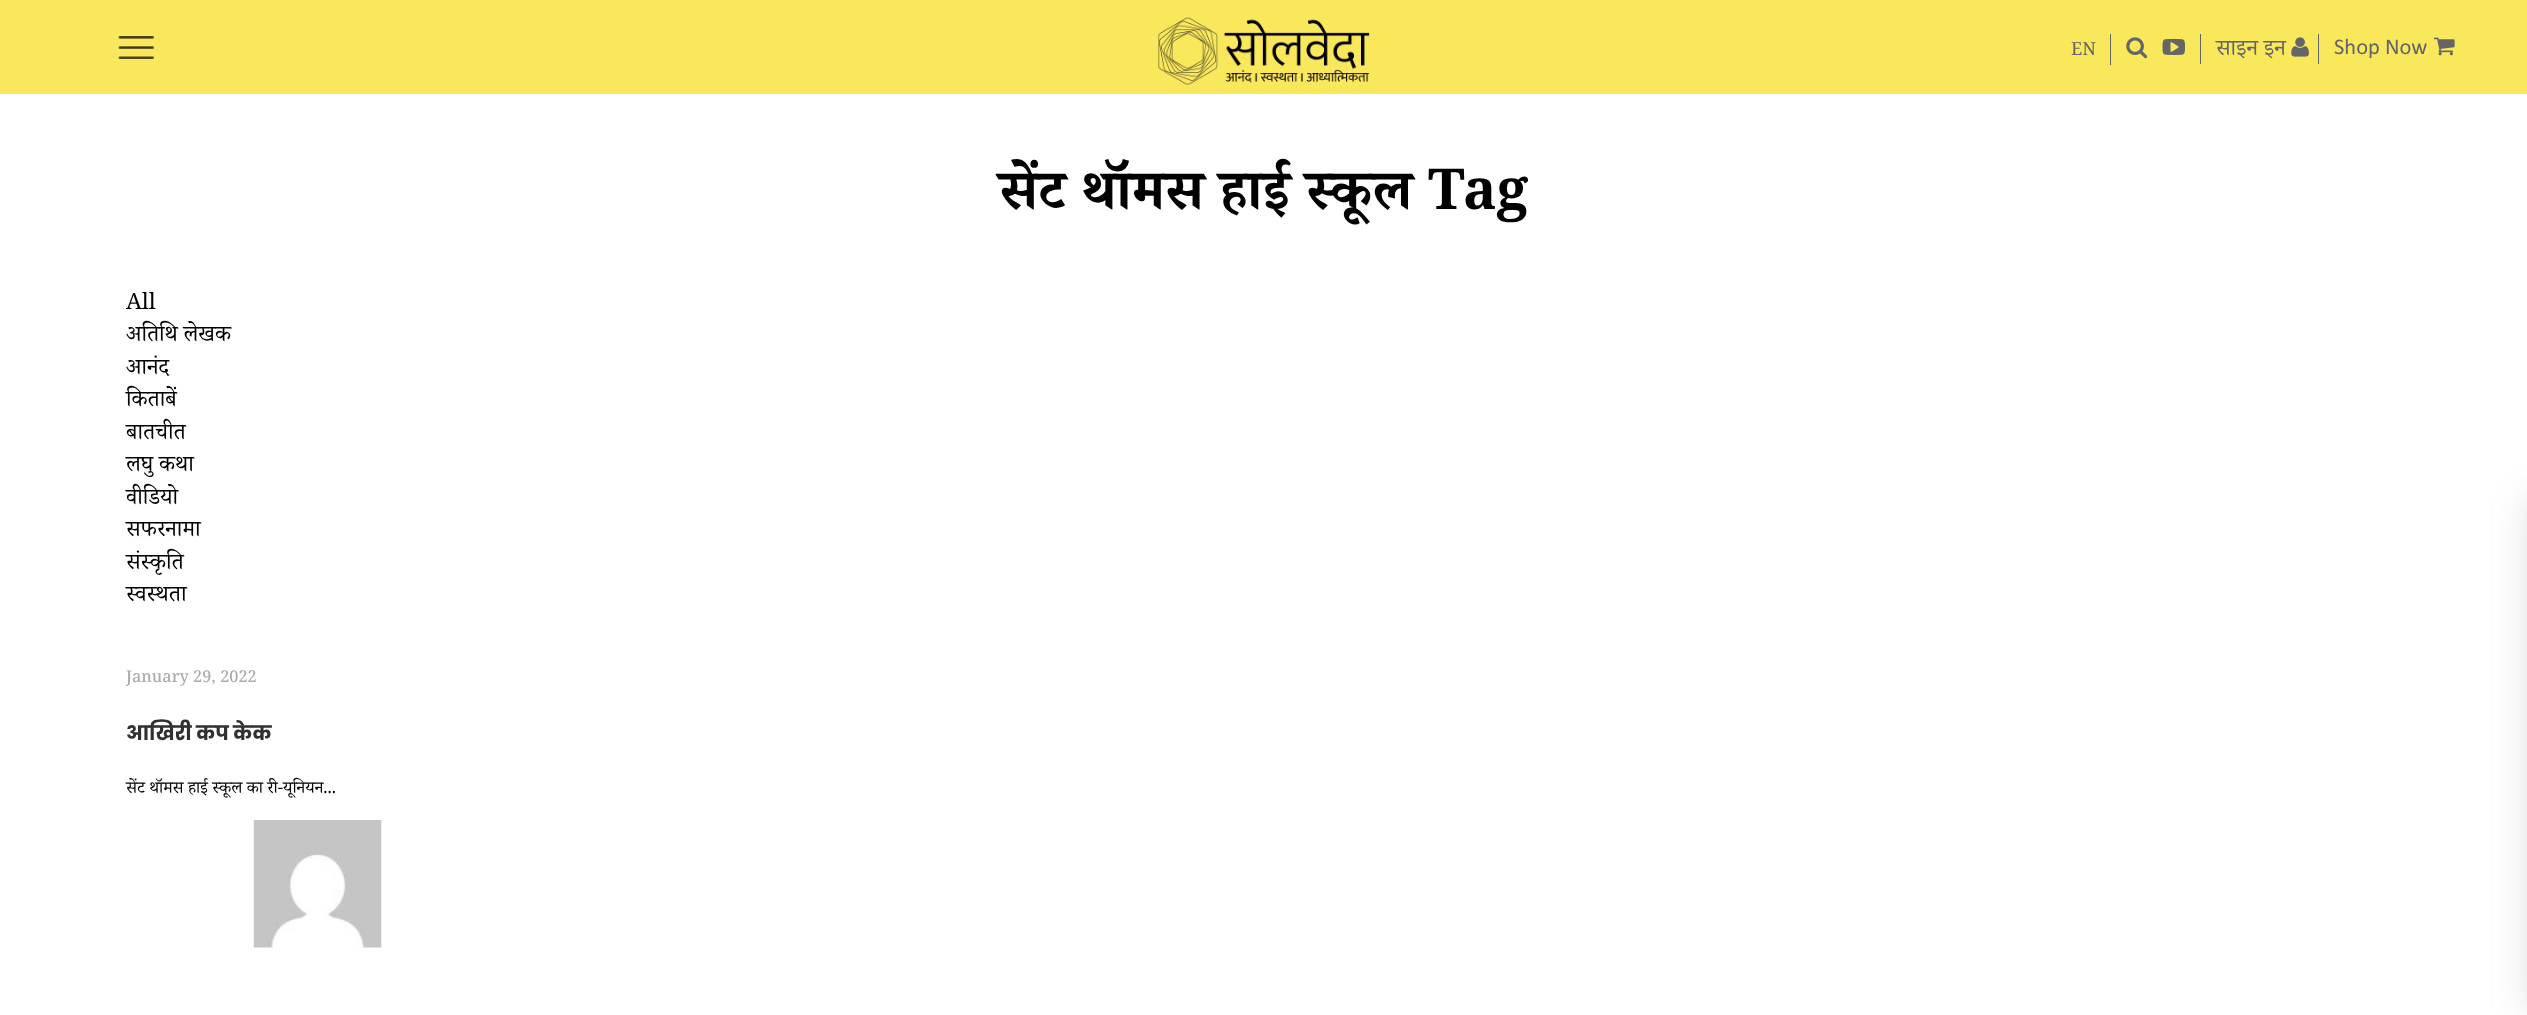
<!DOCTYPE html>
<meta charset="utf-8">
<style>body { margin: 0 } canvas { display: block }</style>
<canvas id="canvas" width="2527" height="1015"></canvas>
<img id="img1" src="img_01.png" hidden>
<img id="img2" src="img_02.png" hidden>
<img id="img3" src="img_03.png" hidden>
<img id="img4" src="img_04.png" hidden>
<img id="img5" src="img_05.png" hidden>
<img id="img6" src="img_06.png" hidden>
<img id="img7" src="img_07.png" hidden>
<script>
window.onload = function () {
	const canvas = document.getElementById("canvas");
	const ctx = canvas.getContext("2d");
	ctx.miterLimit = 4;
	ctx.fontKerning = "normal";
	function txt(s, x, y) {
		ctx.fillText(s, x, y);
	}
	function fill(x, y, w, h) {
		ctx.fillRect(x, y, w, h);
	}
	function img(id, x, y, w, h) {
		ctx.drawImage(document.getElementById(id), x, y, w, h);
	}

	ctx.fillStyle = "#FFFFFF";
	fill(0, 0, 2527, 1015);
	ctx.fillStyle = "#F9E85C";
	fill(0, 0, 2527, 94);
	img("img1", 118, 36, 36, 23);
	img("img2", 1158, 17, 212, 68);
	ctx.fillStyle = "#656565";
	fill(2110, 34, 1, 31);
	img("img3", 2126, 37, 22, 22);
	img("img4", 2162, 38, 23, 17);
	fill(2318, 34, 1, 30);
	fill(2200, 34, 1, 30);
	img("img5", 2291, 37, 18, 20);
	img("img6", 2433, 37, 22, 19);
	img("img7", 253, 820, 129, 128);
	ctx.fillStyle = "rgba(100, 100, 111, 0.2)";
	ctx.filter = "blur(18px)";
	ctx.beginPath();
	ctx.rect(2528, 498, 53, 513);
	ctx.fill();
	ctx.filter = "none";
	ctx.font = "18px Noto Serif Devanagari";
	ctx.fillStyle = "#656565";
	txt("EN", 2071, 55);
	ctx.font = "22.5px Noto Serif Devanagari";
	txt("साइन इन", 2216, 55);
	ctx.font = "22.5px Calibri";
	txt("Shop Now", 2334, 54);
	ctx.font = "bold 56.25px Noto Serif Devanagari";
	ctx.fillStyle = "#000000";
	txt("सेंट थॉमस हाई स्कूल Tag", 999, 209);
	ctx.font = "22.5px Noto Serif Devanagari";
	txt("All", 126, 309);
	txt("अतिथि लेखक", 126, 341);
	txt("आनंद", 126, 374);
	txt("किताबें", 126, 406);
	txt("बातचीत", 126, 439);
	txt("लघु कथा", 126, 471);
	txt("वीडियो", 126, 504);
	txt("सफरनामा", 126, 536);
	txt("संस्कृति", 126, 569);
	txt("स्वस्थता", 126, 601);
	ctx.font = "500 16.25px Noto Serif Devanagari";
	ctx.fillStyle = "#ABABAB";
	txt("January 29, 2022", 126, 682);
	ctx.font = "bold 20px Poppins";
	ctx.fillStyle = "#303030";
	txt("आखिरी कप केक", 126, 740);
	ctx.font = "16.9px Noto Serif Devanagari";
	ctx.fillStyle = "#000000";
	txt("सेंट थॉमस हाई स्कूल का री-यूनियन...", 126, 793);
};
</script>
